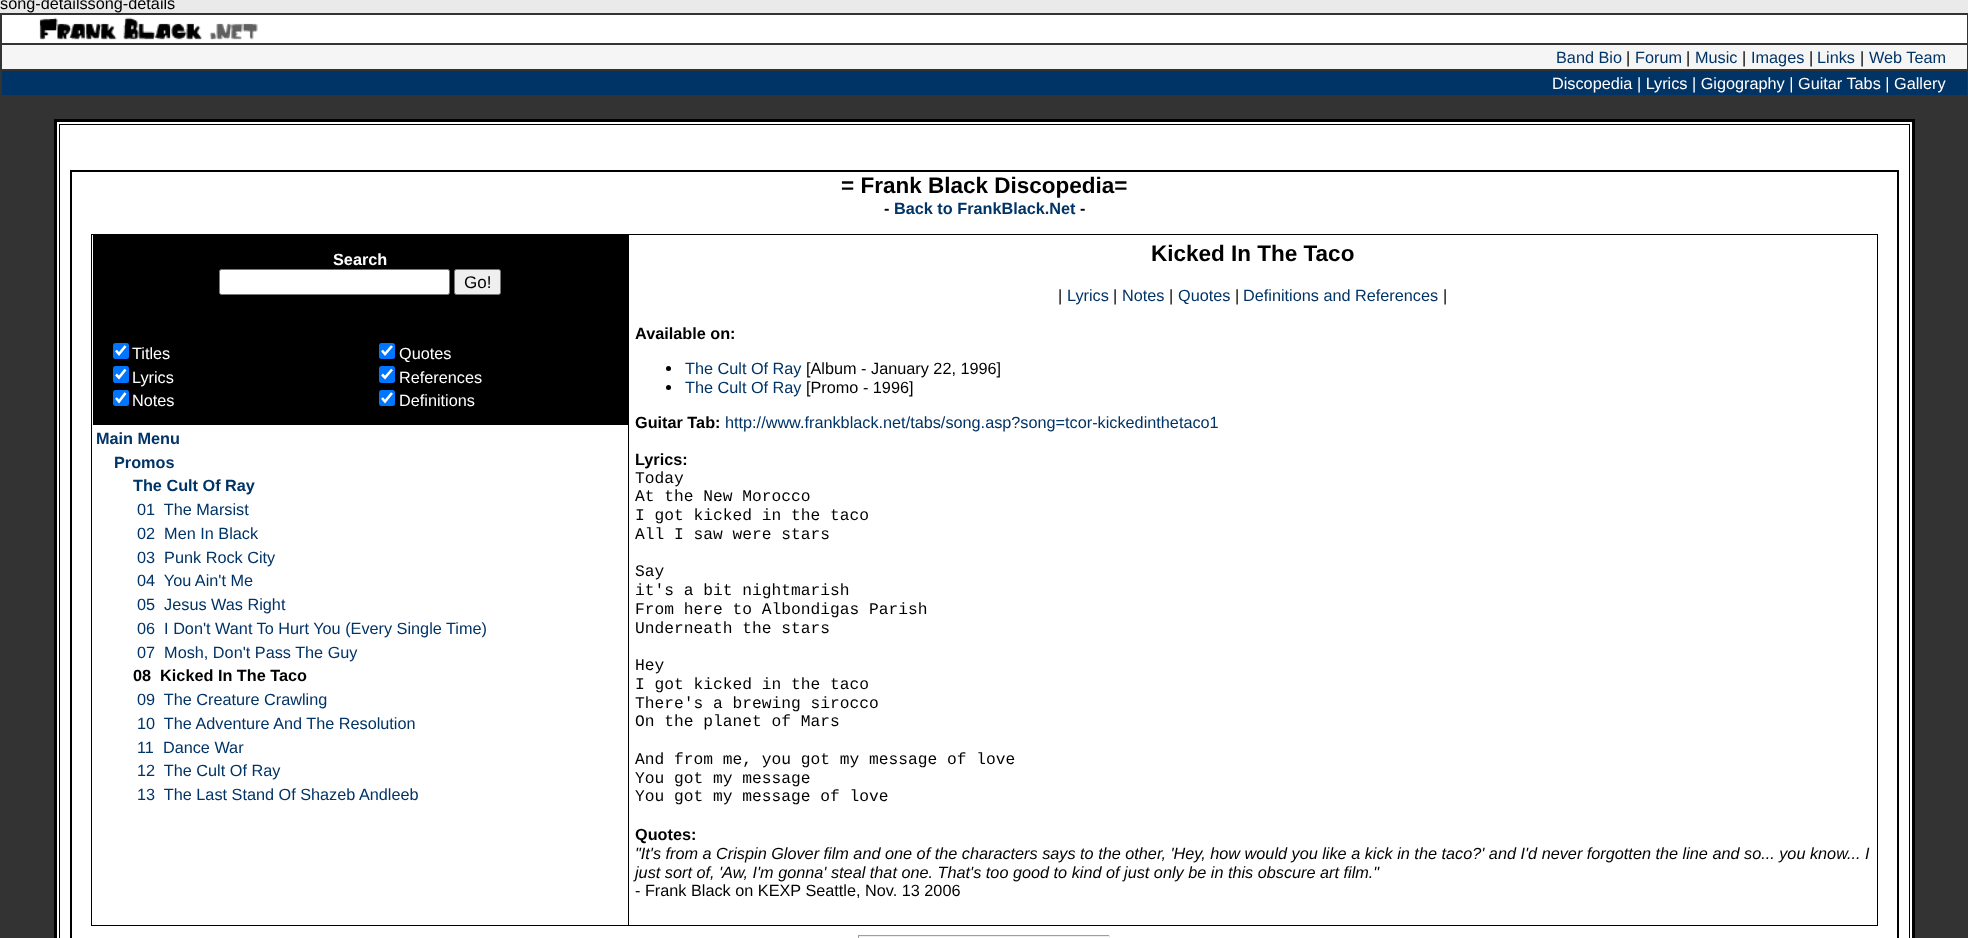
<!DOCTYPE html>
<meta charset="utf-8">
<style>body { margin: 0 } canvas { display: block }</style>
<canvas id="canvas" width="1968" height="938"></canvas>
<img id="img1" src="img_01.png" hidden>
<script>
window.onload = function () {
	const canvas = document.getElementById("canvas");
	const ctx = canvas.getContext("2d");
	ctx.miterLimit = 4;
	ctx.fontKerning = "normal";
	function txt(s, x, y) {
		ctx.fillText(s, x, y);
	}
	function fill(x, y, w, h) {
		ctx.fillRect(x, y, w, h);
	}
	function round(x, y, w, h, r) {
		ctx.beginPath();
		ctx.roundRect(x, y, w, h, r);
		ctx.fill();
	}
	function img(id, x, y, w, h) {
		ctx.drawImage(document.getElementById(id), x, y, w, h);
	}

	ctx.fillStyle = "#EAEAEA";
	fill(0, 0, 1968, 938);
	ctx.fillStyle = "#333333";
	fill(0, 13, 1968, 925);
	ctx.fillStyle = "#FFFFFF";
	fill(2, 15, 1965, 28);
	img("img1", 39, 17, 219, 23);
	ctx.fillStyle = "#F5F5F5";
	fill(2, 45, 1965, 24);
	ctx.fillStyle = "#003366";
	fill(2, 71, 1965, 24);
	ctx.fillStyle = "#FFFFFF";
	ctx.beginPath();
	ctx.rect(55.5, 120.5, 1858, 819);
	ctx.fill();
	ctx.strokeStyle = "#000000";
	ctx.lineWidth = 3;
	ctx.stroke();
	ctx.lineWidth = 1;
	ctx.strokeRect(59.5, 124.5, 1850, 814);
	ctx.strokeRect(70.5, 170.5, 1828, 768);
	ctx.strokeRect(71.5, 171.5, 1826, 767);
	ctx.strokeRect(91.5, 234.5, 1786, 691);
	ctx.fillStyle = "#000000";
	fill(93, 235, 535, 190);
	ctx.fillStyle = "#FFFFFF";
	ctx.beginPath();
	ctx.roundRect(219.5, 269.5, 230, 25, 2);
	ctx.fill();
	ctx.strokeStyle = "#767676";
	ctx.stroke();
	ctx.fillStyle = "#EFEFEF";
	ctx.beginPath();
	ctx.roundRect(454.5, 269.5, 46, 25, 2);
	ctx.fill();
	ctx.stroke();
	ctx.fillStyle = "#0075FF";
	round(113, 343, 16, 16, 2.5);
	ctx.beginPath();
	ctx.moveTo(116, 350.5);
	ctx.lineTo(119, 354);
	ctx.lineTo(125.5, 346);
	ctx.strokeStyle = "#FFFFFF";
	ctx.lineWidth = 2.6;
	ctx.stroke();
	round(113, 366, 16, 17, 2.5);
	ctx.beginPath();
	ctx.moveTo(116, 374.5);
	ctx.lineTo(119, 377.5);
	ctx.lineTo(125.5, 369.5);
	ctx.stroke();
	round(113, 390, 16, 16, 2.5);
	ctx.beginPath();
	ctx.moveTo(116, 398);
	ctx.lineTo(119, 401.5);
	ctx.lineTo(125.5, 393);
	ctx.stroke();
	round(379, 343, 16, 16, 2.5);
	ctx.beginPath();
	ctx.moveTo(382, 350.5);
	ctx.lineTo(385, 354);
	ctx.lineTo(392, 346);
	ctx.stroke();
	round(379, 366, 16, 17, 2.5);
	ctx.beginPath();
	ctx.moveTo(382, 374.5);
	ctx.lineTo(385, 377.5);
	ctx.lineTo(392, 369.5);
	ctx.stroke();
	round(379, 390, 16, 16, 2.5);
	ctx.beginPath();
	ctx.moveTo(382, 398);
	ctx.lineTo(385, 401.5);
	ctx.lineTo(392, 393);
	ctx.stroke();
	ctx.fillStyle = "#000000";
	fill(628, 235, 1, 690);
	ctx.beginPath();
	ctx.arc(668.5, 368.5, 2.5, 0, Math.PI * 2);
	ctx.fill();
	ctx.beginPath();
	ctx.arc(668.5, 387.5, 2.5, 0, Math.PI * 2);
	ctx.fill();
	ctx.fillStyle = "#9F9F9F";
	fill(858, 935, 252, 1);
	ctx.fillStyle = "#EEEEEE";
	fill(1109, 935, 1, 3);
	fill(858, 936, 252, 1);
	ctx.fillStyle = "#9F9F9F";
	fill(858, 935, 1, 3);
	ctx.font = "16.25px Liberation Sans";
	ctx.fillStyle = "#000000";
	txt("song-detailssong-details", 0, 9);
	ctx.fillStyle = "#003366";
	txt("Band Bio", 1556, 63);
	ctx.fillStyle = "#000000";
	txt("|", 1626, 63);
	ctx.fillStyle = "#003366";
	txt("Forum", 1635, 63);
	ctx.fillStyle = "#000000";
	txt("|", 1686, 63);
	ctx.fillStyle = "#003366";
	txt("Music", 1695, 63);
	ctx.fillStyle = "#000000";
	txt("|", 1742, 63);
	ctx.fillStyle = "#003366";
	txt("Images", 1751, 63);
	ctx.fillStyle = "#000000";
	txt("|", 1809, 63);
	ctx.fillStyle = "#003366";
	txt("Links", 1817, 63);
	ctx.fillStyle = "#000000";
	txt("|", 1860, 63);
	ctx.fillStyle = "#003366";
	txt("Web Team", 1869, 63);
	ctx.fillStyle = "#FFFFFF";
	txt("Discopedia | Lyrics | Gigography | Guitar Tabs | Gallery", 1552, 89);
	ctx.font = "bold 22.5px Liberation Sans";
	ctx.fillStyle = "#000000";
	txt("= Frank Black Discopedia=", 841, 193);
	ctx.font = "bold 16.25px Liberation Sans";
	txt("-", 884, 214);
	ctx.fillStyle = "#003366";
	txt("Back to FrankBlack.Net", 894, 214);
	ctx.fillStyle = "#000000";
	txt("-", 1080, 214);
	ctx.fillStyle = "#FFFFFF";
	txt("Search", 333, 265);
	ctx.font = "17px Liberation Sans";
	ctx.fillStyle = "#000000";
	txt("Go!", 464, 288);
	ctx.font = "16.25px Liberation Sans";
	ctx.fillStyle = "#FFFFFF";
	txt("Titles", 132, 359);
	txt("Lyrics", 132, 383);
	txt("Notes", 132, 406);
	txt("Quotes", 399, 359);
	txt("References", 399, 383);
	txt("Definitions", 399, 406);
	ctx.font = "bold 16.25px Liberation Sans";
	ctx.fillStyle = "#003366";
	txt("Main Menu", 96, 444);
	txt("Promos", 114, 468);
	txt("The Cult Of Ray", 133, 491);
	ctx.font = "16.25px Liberation Sans";
	txt("01  The Marsist", 137, 515);
	txt("02  Men In Black", 137, 539);
	txt("03  Punk Rock City", 137, 563);
	txt("04  You Ain't Me", 137, 586);
	txt("05  Jesus Was Right", 137, 610);
	txt("06  I Don't Want To Hurt You (Every Single Time)", 137, 634);
	txt("07  Mosh, Don't Pass The Guy", 137, 658);
	ctx.font = "bold 16.25px Liberation Sans";
	ctx.fillStyle = "#000000";
	txt("08  Kicked In The Taco", 133, 681);
	ctx.font = "16.25px Liberation Sans";
	ctx.fillStyle = "#003366";
	txt("09  The Creature Crawling", 137, 705);
	txt("10  The Adventure And The Resolution", 137, 729);
	txt("11  Dance War", 137, 753);
	txt("12  The Cult Of Ray", 137, 776);
	txt("13  The Last Stand Of Shazeb Andleeb", 137, 800);
	ctx.font = "bold 22.5px Liberation Sans";
	ctx.fillStyle = "#000000";
	txt("Kicked In The Taco", 1151, 261);
	ctx.font = "16.25px Liberation Sans";
	txt("|", 1058, 301);
	ctx.fillStyle = "#003366";
	txt("Lyrics", 1067, 301);
	ctx.fillStyle = "#000000";
	txt("|", 1113, 301);
	ctx.fillStyle = "#003366";
	txt("Notes", 1122, 301);
	ctx.fillStyle = "#000000";
	txt("|", 1169, 301);
	ctx.fillStyle = "#003366";
	txt("Quotes", 1178, 301);
	ctx.fillStyle = "#000000";
	txt("|", 1235, 301);
	ctx.fillStyle = "#003366";
	txt("Definitions and References", 1243, 301);
	ctx.fillStyle = "#000000";
	txt("|", 1443, 301);
	ctx.font = "bold 16.25px Liberation Sans";
	txt("Available on:", 635, 339);
	ctx.font = "16.25px Liberation Sans";
	ctx.fillStyle = "#003366";
	txt("The Cult Of Ray", 685, 374);
	ctx.fillStyle = "#000000";
	txt("[Album - January 22, 1996]", 806, 374);
	ctx.fillStyle = "#003366";
	txt("The Cult Of Ray", 685, 393);
	ctx.fillStyle = "#000000";
	txt("[Promo - 1996]", 806, 393);
	ctx.font = "bold 16.25px Liberation Sans";
	txt("Guitar Tab:", 635, 428);
	ctx.font = "16.25px Liberation Sans";
	ctx.fillStyle = "#003366";
	txt("http://www.frankblack.net/tabs/song.asp?song=tcor-kickedinthetaco1", 725, 428);
	ctx.font = "bold 16.25px Liberation Sans";
	ctx.fillStyle = "#000000";
	txt("Lyrics:", 635, 465);
	ctx.font = "16.25px Liberation Mono";
	txt("Today", 635, 483);
	txt("At the New Morocco", 635, 501);
	txt("I got kicked in the taco", 635, 520);
	txt("All I saw were stars", 635, 539);
	txt("Say", 635, 576);
	txt("it's a bit nightmarish", 635, 595);
	txt("From here to Albondigas Parish", 635, 614);
	txt("Underneath the stars", 635, 633);
	txt("Hey", 635, 670);
	txt("I got kicked in the taco", 635, 689);
	txt("There's a brewing sirocco", 635, 708);
	txt("On the planet of Mars", 635, 726);
	txt("And from me, you got my message of love", 635, 764);
	txt("You got my message", 635, 783);
	txt("You got my message of love", 635, 801);
	ctx.font = "bold 16.25px Liberation Sans";
	txt("Quotes:", 635, 840);
	ctx.font = "italic 16.25px Liberation Sans";
	txt("\"It's from a Crispin Glover film and one of the characters says to the other, 'Hey, how would you like a kick in the taco?' and I'd never forgotten the line and so... you know... I", 635, 859);
	txt("just sort of, 'Aw, I'm gonna' steal that one. That's too good to kind of just only be in this obscure art film.\"", 635, 878);
	ctx.font = "16.25px Liberation Sans";
	txt("- Frank Black on KEXP Seattle, Nov. 13 2006", 635, 896);
};
</script>
